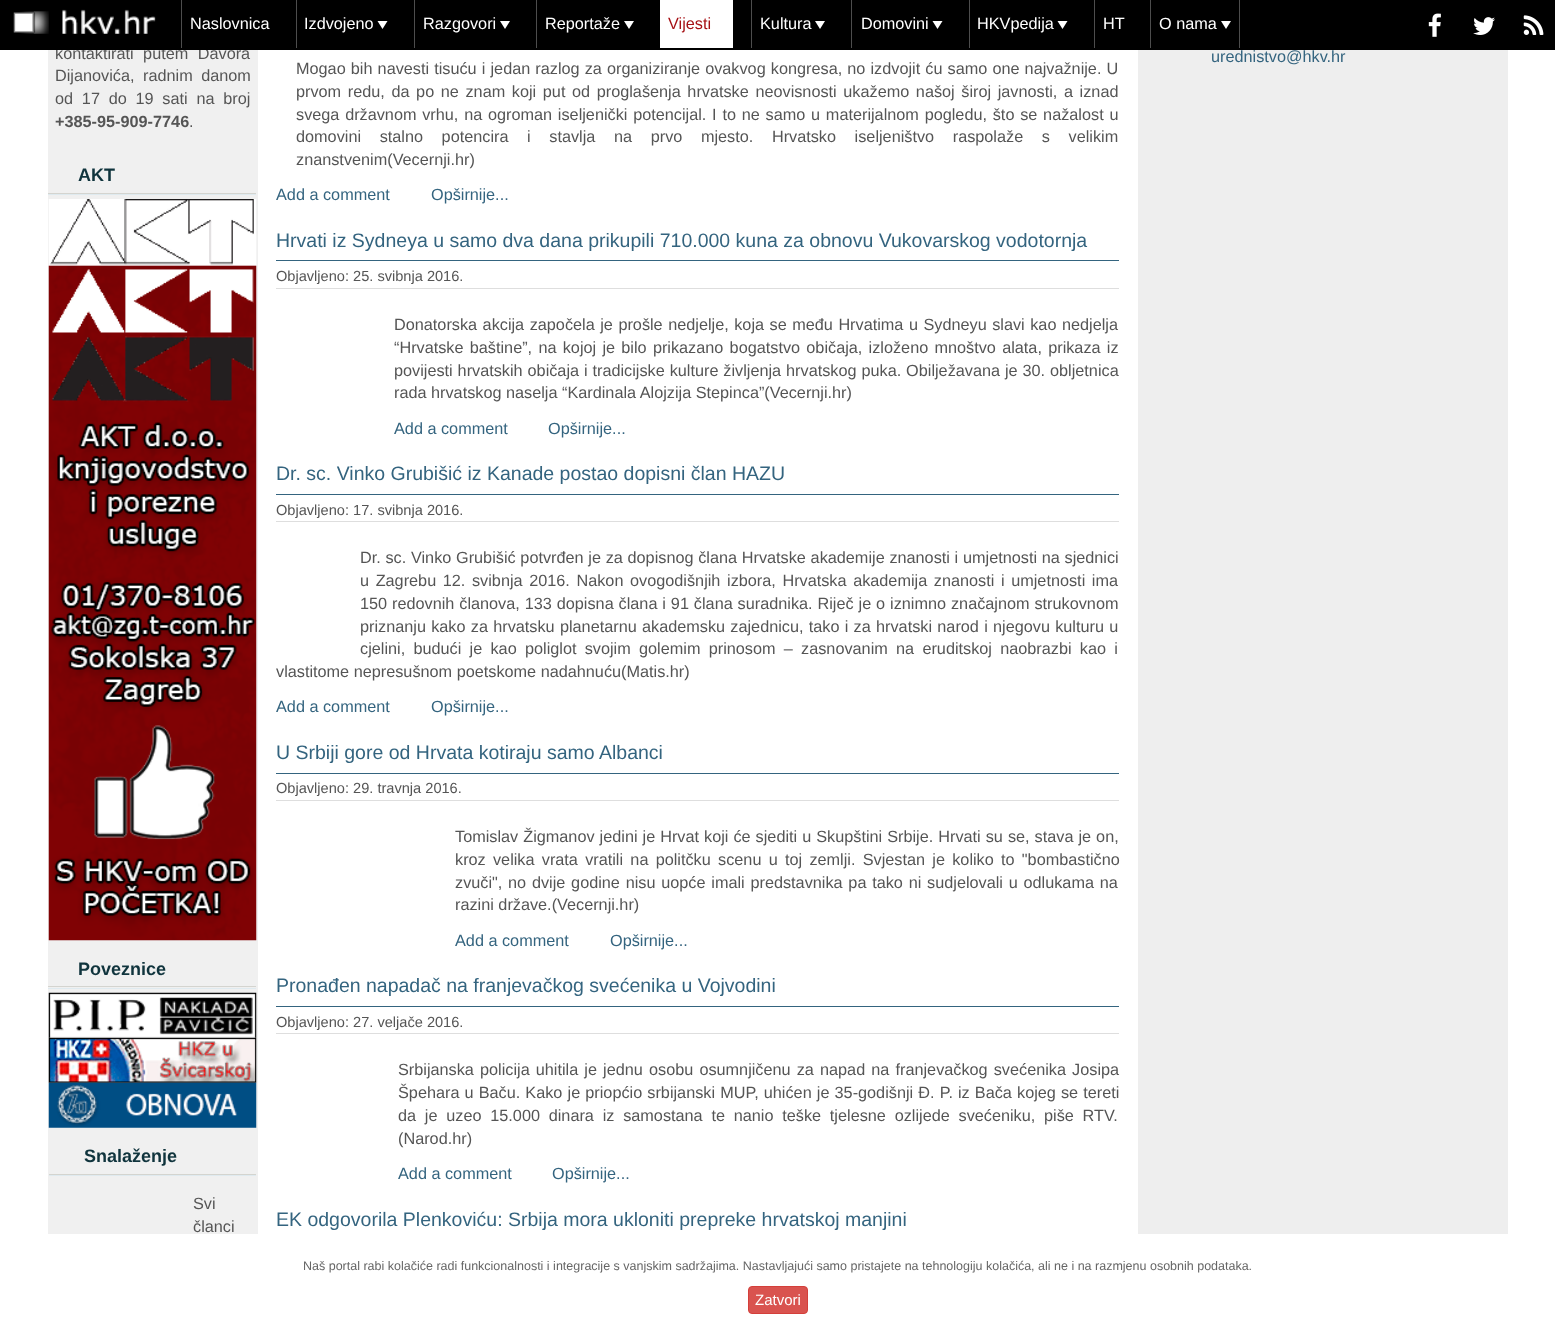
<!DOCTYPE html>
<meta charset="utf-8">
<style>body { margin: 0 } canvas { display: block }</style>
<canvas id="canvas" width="1555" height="1326"></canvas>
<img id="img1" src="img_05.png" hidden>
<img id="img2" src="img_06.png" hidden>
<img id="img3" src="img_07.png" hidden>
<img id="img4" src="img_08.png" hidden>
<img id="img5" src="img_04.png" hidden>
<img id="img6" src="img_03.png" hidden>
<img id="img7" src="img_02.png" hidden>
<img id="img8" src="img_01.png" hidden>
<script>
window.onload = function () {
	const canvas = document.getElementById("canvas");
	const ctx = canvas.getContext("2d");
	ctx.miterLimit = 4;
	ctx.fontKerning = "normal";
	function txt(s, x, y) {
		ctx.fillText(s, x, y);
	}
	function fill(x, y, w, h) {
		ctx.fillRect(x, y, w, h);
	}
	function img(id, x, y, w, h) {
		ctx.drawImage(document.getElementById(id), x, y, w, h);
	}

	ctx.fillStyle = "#FFFFFF";
	fill(0, 0, 1555, 1326);
	ctx.fillStyle = "#F0F0F0";
	fill(48, 50, 210, 1184);
	ctx.fillStyle = "#EEEEEE";
	fill(1138, 50, 370, 1184);
	ctx.fillStyle = "#D4D4CF";
	fill(48, 193, 208, 1);
	ctx.fillStyle = "#DFEAEF";
	fill(48, 194, 208, 1);
	img("img1", 48, 199, 209, 742);
	ctx.fillStyle = "#D4D4CF";
	fill(48, 986, 208, 1);
	ctx.fillStyle = "#DFEAEF";
	fill(48, 988, 208, 1);
	img("img2", 48, 992, 209, 46);
	img("img3", 48, 1037, 209, 46);
	img("img4", 48, 1082, 209, 46);
	ctx.fillStyle = "#D4D4CF";
	fill(49, 1174, 207, 1);
	ctx.fillStyle = "#DFEAEF";
	fill(49, 1175, 207, 1);
	ctx.fillStyle = "#34647F";
	fill(276, 260, 843, 1);
	ctx.fillStyle = "#DEDEDE";
	fill(276, 288, 843, 1);
	ctx.fillStyle = "#34647F";
	fill(276, 494, 843, 1);
	ctx.fillStyle = "#DEDEDE";
	fill(276, 521, 843, 1);
	ctx.fillStyle = "#34647F";
	fill(276, 773, 843, 1);
	ctx.fillStyle = "#DEDEDE";
	fill(276, 800, 843, 1);
	ctx.fillStyle = "#34647F";
	fill(276, 1006, 843, 1);
	ctx.fillStyle = "#DEDEDE";
	fill(276, 1033, 843, 1);
	ctx.fillStyle = "#D9534F";
	ctx.beginPath();
	ctx.roundRect(748.5, 1286.5, 59, 27, 3.5);
	ctx.fill();
	ctx.strokeStyle = "#D43F3A";
	ctx.stroke();
	ctx.wordSpacing = "5px";
	ctx.font = "16.25px Liberation Sans";
	ctx.fillStyle = "#555555";
	txt("kontaktirati putem Davora", 55, 59);
	ctx.fillStyle = "#000000";
	fill(0, 0, 1555, 50);
	img("img5", 1523, 15, 21, 20);
	img("img6", 1473, 17, 22, 18);
	img("img7", 1428, 13, 13, 24);
	img("img8", 13, 9, 143, 25);
	ctx.fillStyle = "#FFFFFF";
	ctx.beginPath();
	ctx.moveTo(1221, 21);
	ctx.lineTo(1231, 21);
	ctx.lineTo(1226, 29);
	ctx.closePath();
	ctx.fill();
	ctx.wordSpacing = "0px";
	txt("O nama", 1159, 29);
	ctx.fillStyle = "#4D4D4D";
	fill(1150, 0, 1, 48);
	fill(1239, 0, 1, 48);
	ctx.fillStyle = "#FFFFFF";
	txt("HT", 1103, 29);
	ctx.fillStyle = "#4D4D4D";
	fill(1094, 0, 1, 48);
	ctx.fillStyle = "#FFFFFF";
	ctx.beginPath();
	ctx.moveTo(1057.5, 21);
	ctx.lineTo(1067.5, 21);
	ctx.lineTo(1062.5, 29);
	ctx.closePath();
	ctx.fill();
	txt("HKVpedija", 977, 29);
	ctx.fillStyle = "#4D4D4D";
	fill(969, 0, 1, 48);
	ctx.fillStyle = "#FFFFFF";
	ctx.beginPath();
	ctx.moveTo(932.5, 21);
	ctx.lineTo(942.5, 21);
	ctx.lineTo(937.5, 29);
	ctx.closePath();
	ctx.fill();
	txt("Domovini", 861, 29);
	ctx.fillStyle = "#4D4D4D";
	fill(851, 0, 1, 48);
	ctx.fillStyle = "#FFFFFF";
	ctx.beginPath();
	ctx.moveTo(815, 21);
	ctx.lineTo(825, 21);
	ctx.lineTo(820, 29);
	ctx.closePath();
	ctx.fill();
	txt("Kultura", 760, 29);
	ctx.fillStyle = "#4D4D4D";
	fill(751, 0, 1, 48);
	ctx.fillStyle = "#FFFFFF";
	fill(660, 0, 73, 48);
	ctx.fillStyle = "#A61115";
	txt("Vijesti", 668, 29);
	ctx.fillStyle = "#FFFFFF";
	ctx.beginPath();
	ctx.moveTo(624, 21);
	ctx.lineTo(634, 21);
	ctx.lineTo(629, 29);
	ctx.closePath();
	ctx.fill();
	txt("Reportaže", 545, 29);
	ctx.fillStyle = "#4D4D4D";
	fill(536, 0, 1, 48);
	ctx.fillStyle = "#FFFFFF";
	ctx.beginPath();
	ctx.moveTo(500, 21);
	ctx.lineTo(510, 21);
	ctx.lineTo(505, 29);
	ctx.closePath();
	ctx.fill();
	txt("Razgovori", 423, 29);
	ctx.fillStyle = "#4D4D4D";
	fill(414, 0, 1, 48);
	ctx.fillStyle = "#FFFFFF";
	ctx.beginPath();
	ctx.moveTo(377.5, 21);
	ctx.lineTo(387.5, 21);
	ctx.lineTo(382.5, 29);
	ctx.closePath();
	ctx.fill();
	txt("Izdvojeno", 304, 29);
	ctx.fillStyle = "#4D4D4D";
	fill(296, 0, 1, 48);
	ctx.fillStyle = "#FFFFFF";
	txt("Naslovnica", 190, 29);
	ctx.fillStyle = "#4D4D4D";
	fill(181, 0, 1, 48);
	ctx.wordSpacing = "4px";
	ctx.fillStyle = "#555555";
	txt("Dijanovića, radnim danom", 55, 81);
	ctx.wordSpacing = "4.25px";
	txt("od 17 do 19 sati na broj", 55, 104);
	ctx.wordSpacing = "0px";
	ctx.font = "bold 16.25px Liberation Sans";
	txt("+385-95-909-7746", 55, 127);
	ctx.font = "16.25px Liberation Sans";
	txt(".", 189, 127);
	ctx.font = "bold 18px Liberation Sans";
	ctx.fillStyle = "#10343D";
	txt("AKT", 78, 181);
	txt("Poveznice", 78, 975);
	txt("Snalaženje", 84, 1162);
	ctx.font = "16.25px Liberation Sans";
	ctx.fillStyle = "#555555";
	txt("Svi", 193, 1209);
	txt("članci", 193, 1232);
	ctx.fillStyle = "#34647F";
	txt("urednistvo@hkv.hr", 1211, 62);
	ctx.wordSpacing = "0.6px";
	ctx.fillStyle = "#555555";
	txt("Mogao bih navesti tisuću i jedan razlog za organiziranje ovakvog kongresa, no izdvojit ću samo one najvažnije. U", 296, 74);
	ctx.wordSpacing = "2.1px";
	txt("prvom redu, da po ne znam koji put od proglašenja hrvatske neovisnosti ukažemo našoj široj javnosti, a iznad", 296, 97);
	ctx.wordSpacing = "1.25px";
	txt("svega državnom vrhu, na ogroman iseljenički potencijal. I to ne samo u materijalnom pogledu, što se nažalost u", 296, 120);
	ctx.wordSpacing = "14.1px";
	txt("domovini stalno potencira i stavlja na prvo mjesto. Hrvatsko iseljeništvo raspolaže s velikim", 296, 142);
	ctx.wordSpacing = "0px";
	txt("znanstvenim(Vecernji.hr)", 296, 165);
	ctx.fillStyle = "#34647F";
	txt("Add a comment", 276, 200);
	txt("Opširnije...", 431, 200);
	ctx.font = "19.5px Liberation Sans";
	txt("Hrvati iz Sydneya u samo dva dana prikupili 710.000 kuna za obnovu Vukovarskog vodotornja", 276, 247);
	ctx.font = "14.6px Liberation Sans";
	ctx.fillStyle = "#555555";
	txt("Objavljeno: 25. svibnja 2016.", 276, 281);
	ctx.wordSpacing = "1px";
	ctx.font = "16.25px Liberation Sans";
	txt("Donatorska akcija započela je prošle nedjelje, koja se među Hrvatima u Sydneyu slavi kao nedjelja", 394, 330);
	ctx.wordSpacing = "1.75px";
	txt("“Hrvatske baštine”, na kojoj je bilo prikazano bogatstvo običaja, izloženo mnoštvo alata, prikaza iz", 394, 353);
	ctx.wordSpacing = "0.4px";
	txt("povijesti hrvatskih običaja i tradicijske kulture življenja hrvatskog puka. Obilježavana je 30. obljetnica", 394, 376);
	ctx.wordSpacing = "0px";
	txt("rada hrvatskog naselja “Kardinala Alojzija Stepinca”(Vecernji.hr)", 394, 398);
	ctx.fillStyle = "#34647F";
	txt("Add a comment", 394, 434);
	txt("Opširnije...", 548, 434);
	ctx.font = "19.5px Liberation Sans";
	txt("Dr. sc. Vinko Grubišić iz Kanade postao dopisni član HAZU", 276, 480);
	ctx.font = "14.6px Liberation Sans";
	ctx.fillStyle = "#555555";
	txt("Objavljeno: 17. svibnja 2016.", 276, 515);
	ctx.wordSpacing = "0.2px";
	ctx.font = "16.25px Liberation Sans";
	txt("Dr. sc. Vinko Grubišić potvrđen je za dopisnog člana Hrvatske akademije znanosti i umjetnosti na sjednici", 360, 563);
	ctx.wordSpacing = "2.1px";
	txt("u Zagrebu 12. svibnja 2016. Nakon ovogodišnjih izbora, Hrvatska akademija znanosti i umjetnosti ima", 360, 586);
	ctx.wordSpacing = "0.4px";
	txt("150 redovnih članova, 133 dopisna člana i 91 člana suradnika. Riječ je o iznimno značajnom strukovnom", 360, 609);
	ctx.wordSpacing = "0.75px";
	txt("priznanju kako za hrvatsku planetarnu akademsku zajednicu, tako i za hrvatski narod i njegovu kulturu u", 360, 632);
	ctx.wordSpacing = "3.75px";
	txt("cjelini, budući je kao poliglot svojim golemim prinosom – zasnovanim na eruditskoj naobrazbi kao i", 360, 654);
	ctx.wordSpacing = "0px";
	txt("vlastitome nepresušnom poetskome nadahnuću(Matis.hr)", 276, 677);
	ctx.fillStyle = "#34647F";
	txt("Add a comment", 276, 712);
	txt("Opširnije...", 431, 712);
	ctx.font = "19.5px Liberation Sans";
	txt("U Srbiji gore od Hrvata kotiraju samo Albanci", 276, 759);
	ctx.font = "14.6px Liberation Sans";
	ctx.fillStyle = "#555555";
	txt("Objavljeno: 29. travnja 2016.", 276, 793);
	ctx.wordSpacing = "0.5px";
	ctx.font = "16.25px Liberation Sans";
	txt("Tomislav Žigmanov jedini je Hrvat koji će sjediti u Skupštini Srbije. Hrvati su se, stava je on,", 455, 842);
	ctx.wordSpacing = "2.75px";
	txt("kroz velika vrata vratili na politčku scenu u toj zemlji. Svjestan je koliko to \"bombastično", 455, 865);
	ctx.wordSpacing = "1.25px";
	txt("zvuči\", no dvije godine nisu uopće imali predstavnika pa tako ni sudjelovali u odlukama na", 455, 888);
	ctx.wordSpacing = "0px";
	txt("razini države.(Vecernji.hr)", 455, 910);
	ctx.fillStyle = "#34647F";
	txt("Add a comment", 455, 946);
	txt("Opširnije...", 610, 946);
	ctx.font = "19.5px Liberation Sans";
	txt("Pronađen napadač na franjevačkog svećenika u Vojvodini", 276, 992);
	ctx.font = "14.6px Liberation Sans";
	ctx.fillStyle = "#555555";
	txt("Objavljeno: 27. veljače 2016.", 276, 1027);
	ctx.wordSpacing = "1.6px";
	ctx.font = "16.25px Liberation Sans";
	txt("Srbijanska policija uhitila je jednu osobu osumnjičenu za napad na franjevačkog svećenika Josipa", 398, 1075);
	ctx.wordSpacing = "0.6px";
	txt("Špehara u Baču. Kako je priopćio srbijanski MUP, uhićen je 35-godišnji Đ. P. iz Bača kojeg se tereti", 398, 1098);
	ctx.wordSpacing = "4.25px";
	txt("da je uzeo 15.000 dinara iz samostana te nanio teške tjelesne ozlijede svećeniku, piše RTV.", 398, 1121);
	ctx.wordSpacing = "0px";
	txt("(Narod.hr)", 398, 1144);
	ctx.fillStyle = "#34647F";
	txt("Add a comment", 398, 1179);
	txt("Opširnije...", 552, 1179);
	ctx.font = "19.5px Liberation Sans";
	txt("EK odgovorila Plenkoviću: Srbija mora ukloniti prepreke hrvatskoj manjini", 276, 1226);
	ctx.font = "12.5px Liberation Sans";
	ctx.fillStyle = "#666666";
	txt("Naš portal rabi kolačiće radi funkcionalnosti i integracije s vanjskim sadržajima. Nastavljajući samo pristajete na tehnologiju kolačića, ali ne i na razmjenu osobnih podataka.", 303, 1270);
	ctx.font = "15px Liberation Sans";
	ctx.fillStyle = "#FFFFFF";
	txt("Zatvori", 755, 1305);
};
</script>
